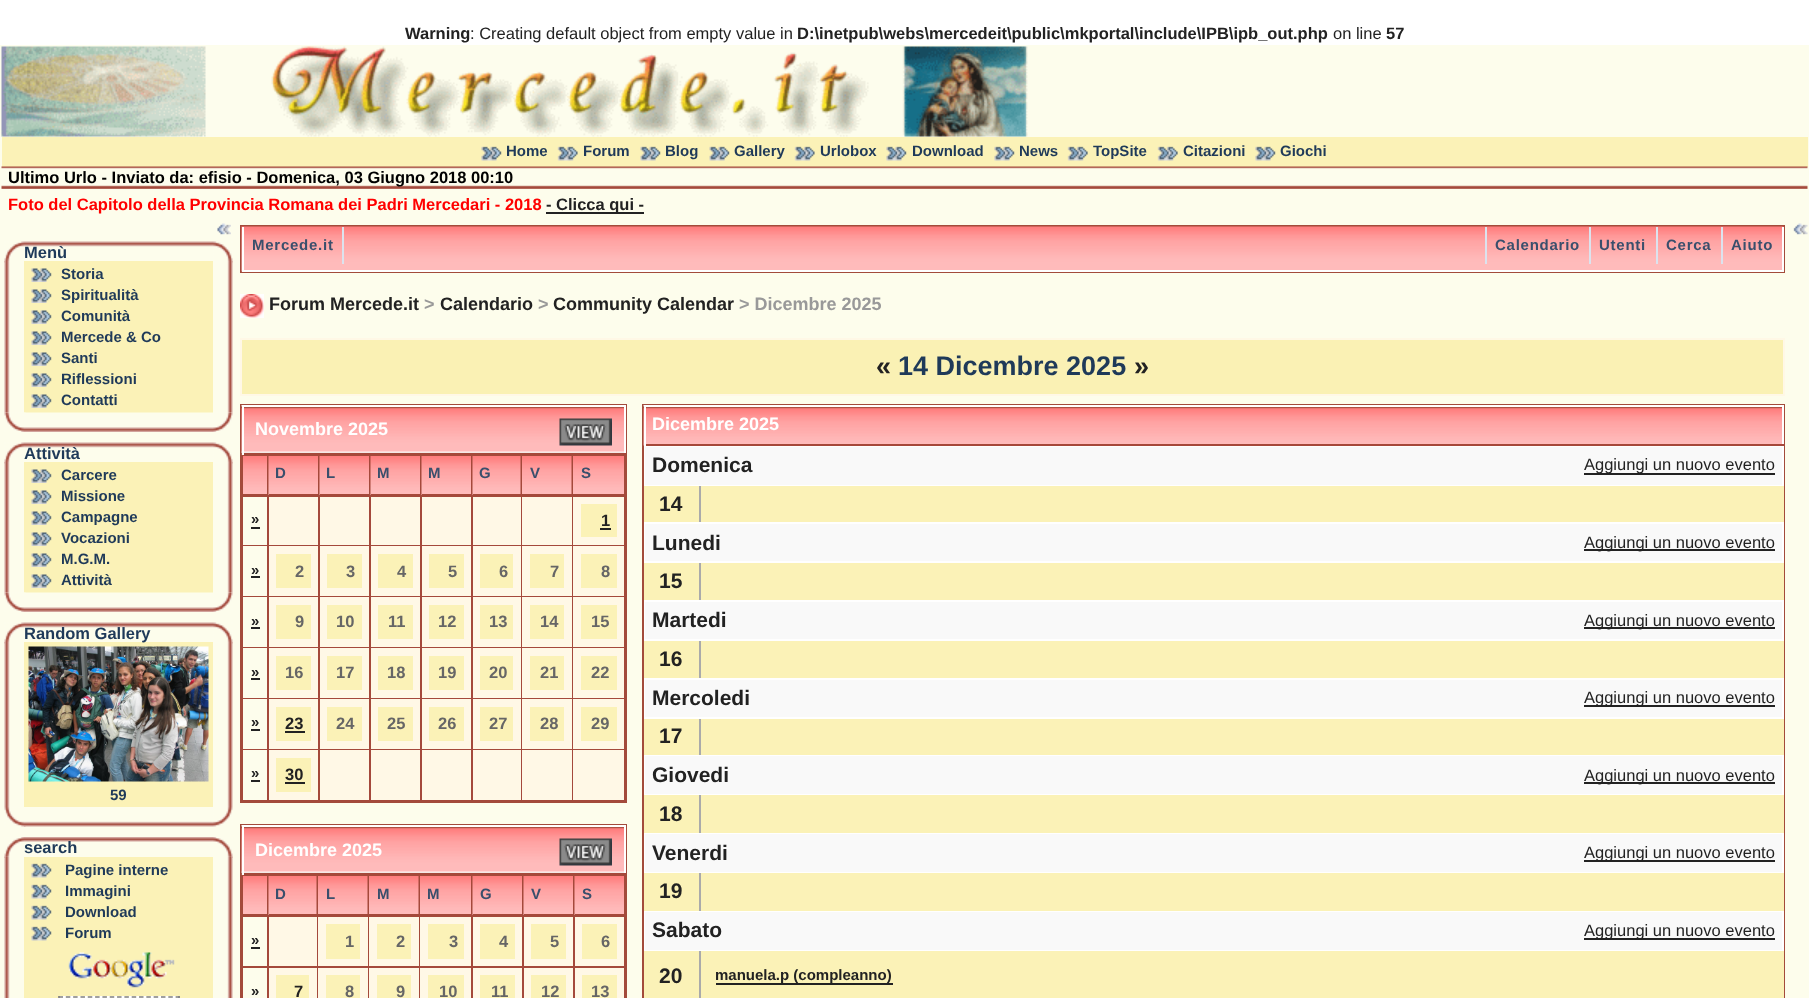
<!DOCTYPE html>
<meta charset="utf-8">
<style>body { margin: 0 } canvas { display: block }</style>
<canvas id="canvas" width="1809" height="998"></canvas>
<img id="img1" src="img_01.png" hidden>
<img id="img2" src="img_02.png" hidden>
<img id="img3" src="img_03.png" hidden>
<img id="img4" src="img_04.png" hidden>
<img id="img5" src="img_05.png" hidden>
<img id="img6" src="img_06.png" hidden>
<img id="img7" src="img_07.png" hidden>
<img id="img8" src="img_08.png" hidden>
<img id="img9" src="img_09.png" hidden>
<img id="img10" src="img_10.png" hidden>
<img id="img11" src="img_11.png" hidden>
<img id="img12" src="img_12.png" hidden>
<img id="img13" src="img_13.png" hidden>
<img id="img14" src="img_14.png" hidden>
<img id="img15" src="img_15.png" hidden>
<img id="img16" src="img_16.png" hidden>
<img id="img17" src="img_17.png" hidden>
<img id="img18" src="img_18.png" hidden>
<img id="img19" src="img_19.png" hidden>
<img id="img20" src="img_20.png" hidden>
<img id="img21" src="img_21.png" hidden>
<img id="img22" src="img_22.png" hidden>
<img id="img23" src="img_23.png" hidden>
<img id="img24" src="img_24.png" hidden>
<img id="img25" src="img_25.png" hidden>
<img id="img26" src="img_26.png" hidden>
<img id="img27" src="img_27.png" hidden>
<img id="img28" src="img_28.png" hidden>
<img id="img29" src="img_32.png" hidden>
<img id="img30" src="img_29.png" hidden>
<img id="img31" src="img_30.png" hidden>
<img id="img32" src="img_35.png" hidden>
<img id="img33" src="img_31.png" hidden>
<img id="img34" src="img_33.png" hidden>
<img id="img35" src="img_34.png" hidden>
<img id="img36" src="img_36.png" hidden>
<img id="img37" src="img_37.png" hidden>
<img id="img38" src="img_38.png" hidden>
<img id="img39" src="img_39.png" hidden>
<img id="img40" src="img_40.png" hidden>
<img id="img41" src="img_41.png" hidden>
<img id="img42" src="img_42.png" hidden>
<img id="img43" src="img_43.png" hidden>
<img id="img44" src="img_44.png" hidden>
<img id="img45" src="img_45.png" hidden>
<img id="img46" src="img_46.png" hidden>
<script>
window.onload = function () {
	const canvas = document.getElementById("canvas");
	const ctx = canvas.getContext("2d");
	ctx.miterLimit = 4;
	ctx.fontKerning = "normal";
	function txt(s, x, y) {
		ctx.fillText(s, x, y);
	}
	function fill(x, y, w, h) {
		ctx.fillRect(x, y, w, h);
	}
	function img(id, x, y, w, h) {
		ctx.drawImage(document.getElementById(id), x, y, w, h);
	}

	ctx.fillStyle = "#FFFFFF";
	fill(0, 0, 1809, 998);
	ctx.fillStyle = "#FDFDEC";
	fill(0, 45, 1809, 953);
	img("img1", 1, 46, 1027, 91);
	ctx.fillStyle = "#FBF2B7";
	fill(2, 137, 1806, 30);
	img("img2", 481, 146, 21, 15);
	img("img3", 557, 146, 21, 15);
	img("img4", 640, 146, 21, 15);
	img("img4", 709, 146, 21, 15);
	img("img3", 794, 146, 21, 15);
	img("img2", 886, 146, 21, 15);
	img("img2", 994, 146, 21, 15);
	img("img5", 1067, 146, 21, 15);
	img("img5", 1157, 146, 21, 15);
	img("img2", 1255, 146, 21, 15);
	img("img6", 1, 166, 1807, 23);
	ctx.fillStyle = "#222222";
	fill(546, 212, 98, 2);
	img("img7", 1793, 223, 15, 12);
	img("img8", 217, 223, 14, 12);
	img("img9", 4, 241, 20, 20);
	img("img10", 24, 241, 189, 6);
	img("img11", 213, 241, 20, 20);
	img("img12", 4, 261, 6, 152);
	img("img13", 4, 261, 1, 2);
	ctx.fillStyle = "#FBF2B7";
	fill(24, 261, 189, 152);
	img("img14", 31, 268, 21, 14);
	img("img14", 31, 289, 21, 14);
	img("img14", 31, 310, 21, 14);
	img("img14", 31, 331, 21, 14);
	img("img14", 31, 352, 21, 14);
	img("img14", 31, 373, 21, 14);
	img("img14", 31, 394, 21, 14);
	img("img15", 227, 261, 6, 152);
	img("img13", 232, 261, 1, 2);
	img("img16", 4, 412, 20, 20);
	img("img17", 24, 412, 189, 20);
	img("img18", 24, 412, 2, 1);
	img("img19", 213, 412, 20, 20);
	img("img9", 4, 442, 20, 20);
	img("img10", 24, 442, 189, 6);
	img("img11", 213, 442, 20, 20);
	img("img20", 4, 462, 6, 131);
	img("img13", 4, 462, 1, 2);
	fill(24, 462, 189, 131);
	img("img14", 31, 469, 21, 14);
	img("img14", 31, 490, 21, 14);
	img("img14", 31, 511, 21, 14);
	img("img14", 31, 532, 21, 14);
	img("img14", 31, 553, 21, 14);
	img("img14", 31, 574, 21, 14);
	img("img21", 227, 462, 6, 131);
	img("img13", 232, 462, 1, 2);
	img("img16", 4, 592, 20, 20);
	img("img17", 24, 592, 189, 20);
	img("img18", 24, 592, 2, 1);
	img("img19", 213, 592, 20, 20);
	img("img9", 4, 622, 20, 20);
	img("img10", 24, 622, 189, 6);
	img("img11", 213, 622, 20, 20);
	img("img22", 4, 642, 6, 165);
	img("img13", 4, 642, 1, 2);
	fill(24, 642, 189, 165);
	img("img23", 28, 646, 181, 136);
	img("img24", 227, 642, 6, 165);
	img("img13", 232, 642, 1, 2);
	img("img25", 4, 807, 20, 20);
	img("img26", 24, 821, 189, 6);
	img("img27", 24, 826, 2, 1);
	img("img28", 213, 807, 20, 20);
	img("img29", 4, 856, 6, 142);
	img("img30", 4, 837, 20, 20);
	img("img31", 24, 837, 189, 5);
	img("img32", 227, 856, 6, 142);
	img("img33", 213, 837, 20, 20);
	img("img34", 4, 856, 5, 2);
	fill(24, 857, 189, 141);
	img("img2", 31, 863, 21, 15);
	img("img2", 31, 884, 21, 15);
	img("img2", 31, 905, 21, 15);
	img("img2", 31, 926, 21, 15);
	img("img35", 68, 952, 107, 36);
	ctx.fillStyle = "#FFFFFF";
	fill(59, 996, 121, 2);
	ctx.beginPath();
	ctx.moveTo(58.5, 997);
	ctx.lineTo(180, 997);
	ctx.strokeStyle = "#808080";
	ctx.lineWidth = 1.5;
	ctx.setLineDash([4.5, 2.82]);
	ctx.stroke();
	ctx.beginPath();
	ctx.moveTo(179, 996);
	ctx.lineTo(179, 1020);
	ctx.setLineDash([4.5, 2]);
	ctx.stroke();
	ctx.beginPath();
	ctx.moveTo(59, 996);
	ctx.lineTo(59, 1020);
	ctx.stroke();
	img("img36", 228, 856, 5, 2);
	ctx.strokeStyle = "#A34B3B";
	ctx.lineWidth = 2;
	ctx.setLineDash([]);
	ctx.strokeRect(241, 226, 1543, 46);
	img("img37", 241, 226, 1543, 46);
	fill(1782, 227, 2, 45);
	fill(242, 270, 1542, 2);
	fill(242, 227, 2, 45);
	ctx.fillStyle = "#DCE3EE";
	fill(342, 227, 2, 37);
	fill(1485, 227, 2, 37);
	fill(1589, 227, 2, 37);
	fill(1656, 227, 2, 37);
	fill(1721, 227, 2, 37);
	img("img38", 240, 294, 24, 24);
	ctx.fillStyle = "#FAF1B4";
	ctx.beginPath();
	ctx.rect(241, 339, 1543, 56);
	ctx.fill();
	ctx.strokeStyle = "#FFF8E6";
	ctx.stroke();
	ctx.fillStyle = "#A4493B";
	fill(242, 455, 383, 346);
	ctx.strokeStyle = "#A34B3B";
	ctx.strokeRect(241, 405, 385, 397);
	img("img39", 241, 405, 383, 50);
	ctx.fillStyle = "#FFFFFF";
	fill(242, 405, 384, 2);
	fill(624, 405, 2, 50);
	ctx.fillStyle = "#A6483A";
	fill(242, 453, 384, 2);
	ctx.fillStyle = "#FFFFFF";
	fill(242, 405, 2, 50);
	img("img40", 559, 418, 53, 28);
	img("img41", 243, 456, 24, 38);
	img("img42", 268, 456, 50, 39);
	ctx.fillStyle = "#A6483A";
	fill(269, 494, 49, 1);
	img("img42", 319, 456, 50, 39);
	fill(320, 494, 49, 1);
	img("img42", 370, 456, 50, 39);
	fill(371, 494, 49, 1);
	img("img42", 421, 456, 50, 39);
	fill(422, 494, 49, 1);
	img("img43", 472, 456, 49, 39);
	fill(473, 494, 48, 1);
	img("img44", 522, 456, 50, 38);
	img("img45", 573, 456, 51, 38);
	ctx.fillStyle = "#FDFDEC";
	fill(243, 497, 24, 48);
	ctx.fillStyle = "#222222";
	fill(251, 527, 9, 2);
	ctx.fillStyle = "#FFF8E6";
	fill(269, 497, 49, 48);
	fill(320, 497, 49, 48);
	fill(371, 497, 49, 48);
	fill(422, 497, 49, 48);
	fill(473, 497, 48, 48);
	fill(522, 497, 50, 48);
	fill(573, 497, 51, 48);
	ctx.fillStyle = "#FBF2B7";
	fill(581, 504, 36, 33);
	ctx.fillStyle = "#222222";
	fill(600, 528, 11, 2);
	ctx.fillStyle = "#FDFDEC";
	fill(243, 546, 24, 50);
	ctx.fillStyle = "#222222";
	fill(251, 576, 9, 2);
	ctx.fillStyle = "#FFF8E6";
	fill(269, 546, 49, 50);
	ctx.fillStyle = "#FBF2B7";
	fill(276, 554, 35, 34);
	ctx.fillStyle = "#FFF8E6";
	fill(320, 546, 49, 50);
	ctx.fillStyle = "#FBF2B7";
	fill(327, 554, 35, 34);
	ctx.fillStyle = "#FFF8E6";
	fill(371, 546, 49, 50);
	ctx.fillStyle = "#FBF2B7";
	fill(378, 554, 35, 34);
	ctx.fillStyle = "#FFF8E6";
	fill(422, 546, 49, 50);
	ctx.fillStyle = "#FBF2B7";
	fill(429, 554, 35, 34);
	ctx.fillStyle = "#FFF8E6";
	fill(473, 546, 48, 50);
	ctx.fillStyle = "#FBF2B7";
	fill(480, 554, 33, 34);
	ctx.fillStyle = "#FFF8E6";
	fill(522, 546, 50, 50);
	ctx.fillStyle = "#FBF2B7";
	fill(530, 554, 34, 34);
	ctx.fillStyle = "#FFF8E6";
	fill(573, 546, 51, 50);
	ctx.fillStyle = "#FBF2B7";
	fill(581, 554, 36, 34);
	ctx.fillStyle = "#FDFDEC";
	fill(243, 597, 24, 50);
	ctx.fillStyle = "#222222";
	fill(251, 627, 9, 2);
	ctx.fillStyle = "#FFF8E6";
	fill(269, 597, 49, 50);
	ctx.fillStyle = "#FBF2B7";
	fill(276, 605, 35, 34);
	ctx.fillStyle = "#FFF8E6";
	fill(320, 597, 49, 50);
	ctx.fillStyle = "#FBF2B7";
	fill(327, 605, 35, 34);
	ctx.fillStyle = "#FFF8E6";
	fill(371, 597, 49, 50);
	ctx.fillStyle = "#FBF2B7";
	fill(378, 605, 35, 34);
	ctx.fillStyle = "#FFF8E6";
	fill(422, 597, 49, 50);
	ctx.fillStyle = "#FBF2B7";
	fill(429, 605, 35, 34);
	ctx.fillStyle = "#FFF8E6";
	fill(473, 597, 48, 50);
	ctx.fillStyle = "#FBF2B7";
	fill(480, 605, 33, 34);
	ctx.fillStyle = "#FFF8E6";
	fill(522, 597, 50, 50);
	ctx.fillStyle = "#FBF2B7";
	fill(530, 605, 34, 34);
	ctx.fillStyle = "#FFF8E6";
	fill(573, 597, 51, 50);
	ctx.fillStyle = "#FBF2B7";
	fill(581, 605, 36, 34);
	ctx.fillStyle = "#FDFDEC";
	fill(243, 648, 24, 50);
	ctx.fillStyle = "#222222";
	fill(251, 678, 9, 2);
	ctx.fillStyle = "#FFF8E6";
	fill(269, 648, 49, 50);
	ctx.fillStyle = "#FBF2B7";
	fill(276, 656, 35, 34);
	ctx.fillStyle = "#FFF8E6";
	fill(320, 648, 49, 50);
	ctx.fillStyle = "#FBF2B7";
	fill(327, 656, 35, 34);
	ctx.fillStyle = "#FFF8E6";
	fill(371, 648, 49, 50);
	ctx.fillStyle = "#FBF2B7";
	fill(378, 656, 35, 34);
	ctx.fillStyle = "#FFF8E6";
	fill(422, 648, 49, 50);
	ctx.fillStyle = "#FBF2B7";
	fill(429, 656, 35, 34);
	ctx.fillStyle = "#FFF8E6";
	fill(473, 648, 48, 50);
	ctx.fillStyle = "#FBF2B7";
	fill(480, 656, 33, 34);
	ctx.fillStyle = "#FFF8E6";
	fill(522, 648, 50, 50);
	ctx.fillStyle = "#FBF2B7";
	fill(530, 656, 34, 34);
	ctx.fillStyle = "#FFF8E6";
	fill(573, 648, 51, 50);
	ctx.fillStyle = "#FBF2B7";
	fill(581, 656, 36, 34);
	ctx.fillStyle = "#FDFDEC";
	fill(243, 699, 24, 50);
	ctx.fillStyle = "#222222";
	fill(251, 729, 9, 2);
	ctx.fillStyle = "#FFF8E6";
	fill(269, 699, 49, 50);
	ctx.fillStyle = "#FBF2B7";
	fill(276, 707, 35, 34);
	ctx.fillStyle = "#222222";
	fill(285, 731, 20, 2);
	ctx.fillStyle = "#FFF8E6";
	fill(320, 699, 49, 50);
	ctx.fillStyle = "#FBF2B7";
	fill(327, 707, 35, 34);
	ctx.fillStyle = "#FFF8E6";
	fill(371, 699, 49, 50);
	ctx.fillStyle = "#FBF2B7";
	fill(378, 707, 35, 34);
	ctx.fillStyle = "#FFF8E6";
	fill(422, 699, 49, 50);
	ctx.fillStyle = "#FBF2B7";
	fill(429, 707, 35, 34);
	ctx.fillStyle = "#FFF8E6";
	fill(473, 699, 48, 50);
	ctx.fillStyle = "#FBF2B7";
	fill(480, 707, 33, 34);
	ctx.fillStyle = "#FFF8E6";
	fill(522, 699, 50, 50);
	ctx.fillStyle = "#FBF2B7";
	fill(530, 707, 34, 34);
	ctx.fillStyle = "#FFF8E6";
	fill(573, 699, 51, 50);
	ctx.fillStyle = "#FBF2B7";
	fill(581, 707, 36, 34);
	ctx.fillStyle = "#FDFDEC";
	fill(243, 750, 24, 50);
	ctx.fillStyle = "#222222";
	fill(251, 780, 9, 2);
	ctx.fillStyle = "#FFF8E6";
	fill(269, 750, 49, 50);
	ctx.fillStyle = "#FBF2B7";
	fill(276, 758, 35, 34);
	ctx.fillStyle = "#222222";
	fill(285, 782, 20, 2);
	ctx.fillStyle = "#FFF8E6";
	fill(320, 750, 49, 50);
	fill(371, 750, 49, 50);
	fill(422, 750, 49, 50);
	fill(473, 750, 48, 50);
	fill(522, 750, 50, 50);
	fill(573, 750, 51, 50);
	ctx.fillStyle = "#A4493B";
	fill(242, 875, 383, 123);
	ctx.strokeRect(241, 825, 385, 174);
	img("img39", 241, 825, 383, 50);
	ctx.fillStyle = "#FFFFFF";
	fill(242, 825, 384, 2);
	fill(624, 825, 2, 50);
	ctx.fillStyle = "#A6483A";
	fill(242, 873, 384, 2);
	ctx.fillStyle = "#FFFFFF";
	fill(242, 825, 2, 50);
	img("img40", 559, 838, 53, 28);
	img("img41", 243, 876, 24, 38);
	img("img43", 268, 876, 49, 39);
	ctx.fillStyle = "#A6483A";
	fill(269, 914, 48, 1);
	img("img44", 318, 876, 50, 38);
	img("img44", 369, 876, 50, 38);
	img("img45", 420, 876, 51, 38);
	img("img42", 472, 876, 50, 39);
	fill(473, 914, 49, 1);
	img("img42", 523, 876, 50, 39);
	fill(524, 914, 49, 1);
	img("img42", 574, 876, 50, 39);
	fill(575, 914, 49, 1);
	ctx.fillStyle = "#FDFDEC";
	fill(243, 917, 24, 49);
	ctx.fillStyle = "#222222";
	fill(251, 947, 9, 2);
	ctx.fillStyle = "#FFF8E6";
	fill(269, 917, 48, 49);
	fill(318, 917, 50, 49);
	ctx.fillStyle = "#FBF2B7";
	fill(326, 924, 34, 35);
	ctx.fillStyle = "#FFF8E6";
	fill(369, 917, 50, 49);
	ctx.fillStyle = "#FBF2B7";
	fill(377, 924, 34, 35);
	ctx.fillStyle = "#FFF8E6";
	fill(420, 917, 51, 49);
	ctx.fillStyle = "#FBF2B7";
	fill(428, 924, 36, 35);
	ctx.fillStyle = "#FFF8E6";
	fill(473, 917, 49, 49);
	ctx.fillStyle = "#FBF2B7";
	fill(480, 924, 35, 35);
	ctx.fillStyle = "#FFF8E6";
	fill(524, 917, 49, 49);
	ctx.fillStyle = "#FBF2B7";
	fill(531, 924, 35, 35);
	ctx.fillStyle = "#FFF8E6";
	fill(575, 917, 49, 49);
	ctx.fillStyle = "#FBF2B7";
	fill(582, 924, 35, 35);
	ctx.fillStyle = "#FDFDEC";
	fill(243, 968, 24, 30);
	ctx.fillStyle = "#FFF8E6";
	fill(269, 968, 48, 30);
	ctx.fillStyle = "#FBF2B7";
	fill(276, 975, 33, 23);
	ctx.fillStyle = "#FFF8E6";
	fill(318, 968, 50, 30);
	ctx.fillStyle = "#FBF2B7";
	fill(326, 975, 34, 23);
	ctx.fillStyle = "#FFF8E6";
	fill(369, 968, 50, 30);
	ctx.fillStyle = "#FBF2B7";
	fill(377, 975, 34, 23);
	ctx.fillStyle = "#FFF8E6";
	fill(420, 968, 51, 30);
	ctx.fillStyle = "#FBF2B7";
	fill(428, 975, 36, 23);
	ctx.fillStyle = "#FFF8E6";
	fill(473, 968, 49, 30);
	ctx.fillStyle = "#FBF2B7";
	fill(480, 975, 35, 23);
	ctx.fillStyle = "#FFF8E6";
	fill(524, 968, 49, 30);
	ctx.fillStyle = "#FBF2B7";
	fill(531, 975, 35, 23);
	ctx.fillStyle = "#FFF8E6";
	fill(575, 968, 49, 30);
	ctx.fillStyle = "#FBF2B7";
	fill(582, 975, 35, 23);
	ctx.strokeRect(643, 405, 1141, 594);
	img("img46", 643, 405, 1139, 41);
	ctx.fillStyle = "#FFFFFF";
	fill(644, 405, 1140, 2);
	fill(1782, 405, 2, 41);
	ctx.fillStyle = "#A6483A";
	fill(644, 444, 1140, 2);
	ctx.fillStyle = "#FFFFFF";
	fill(644, 405, 2, 41);
	ctx.strokeStyle = "#FFFFFF";
	ctx.strokeRect(645, 447, 1138, 38);
	ctx.fillStyle = "#F9F9F9";
	fill(645, 447, 1137, 38);
	ctx.fillStyle = "#222222";
	fill(1584, 473, 191, 2);
	ctx.fillStyle = "#FBF2B7";
	fill(644, 486, 55, 36);
	ctx.fillStyle = "#AAAAAA";
	fill(699, 486, 2, 36);
	ctx.fillStyle = "#FBF2B7";
	fill(701, 486, 1083, 36);
	ctx.strokeRect(645, 523, 1138, 39);
	ctx.fillStyle = "#F9F9F9";
	fill(645, 524, 1137, 37);
	ctx.fillStyle = "#222222";
	fill(1584, 549, 191, 2);
	ctx.fillStyle = "#FBF2B7";
	fill(644, 563, 55, 37);
	ctx.fillStyle = "#AAAAAA";
	fill(699, 563, 2, 37);
	ctx.fillStyle = "#FBF2B7";
	fill(701, 563, 1083, 37);
	ctx.strokeRect(645, 601, 1138, 39);
	ctx.fillStyle = "#F9F9F9";
	fill(645, 602, 1137, 37);
	ctx.fillStyle = "#222222";
	fill(1584, 627, 191, 2);
	ctx.fillStyle = "#FBF2B7";
	fill(644, 641, 55, 37);
	ctx.fillStyle = "#AAAAAA";
	fill(699, 641, 2, 37);
	ctx.fillStyle = "#FBF2B7";
	fill(701, 641, 1083, 37);
	ctx.strokeRect(645, 679, 1138, 39);
	ctx.fillStyle = "#F9F9F9";
	fill(645, 680, 1137, 37);
	ctx.fillStyle = "#222222";
	fill(1584, 705, 191, 2);
	ctx.fillStyle = "#FBF2B7";
	fill(644, 719, 55, 36);
	ctx.fillStyle = "#AAAAAA";
	fill(699, 719, 2, 36);
	ctx.fillStyle = "#FBF2B7";
	fill(701, 719, 1083, 36);
	ctx.strokeRect(645, 756, 1138, 38);
	ctx.fillStyle = "#F9F9F9";
	fill(645, 756, 1137, 38);
	ctx.fillStyle = "#222222";
	fill(1584, 782, 191, 2);
	ctx.fillStyle = "#FBF2B7";
	fill(644, 795, 55, 38);
	ctx.fillStyle = "#AAAAAA";
	fill(699, 795, 2, 38);
	ctx.fillStyle = "#FBF2B7";
	fill(701, 795, 1083, 38);
	ctx.strokeRect(645, 834, 1138, 38);
	ctx.fillStyle = "#F9F9F9";
	fill(645, 834, 1137, 38);
	ctx.fillStyle = "#222222";
	fill(1584, 860, 191, 2);
	ctx.fillStyle = "#FBF2B7";
	fill(644, 873, 55, 38);
	ctx.fillStyle = "#AAAAAA";
	fill(699, 873, 2, 38);
	ctx.fillStyle = "#FBF2B7";
	fill(701, 873, 1083, 38);
	ctx.strokeRect(645, 912, 1138, 38);
	ctx.fillStyle = "#F9F9F9";
	fill(645, 912, 1137, 38);
	ctx.fillStyle = "#222222";
	fill(1584, 938, 191, 2);
	ctx.fillStyle = "#FBF2B7";
	fill(644, 951, 55, 47);
	ctx.fillStyle = "#AAAAAA";
	fill(699, 951, 2, 47);
	ctx.fillStyle = "#FBF2B7";
	fill(701, 951, 1083, 47);
	ctx.fillStyle = "#222222";
	fill(716, 983, 177, 2);
	ctx.font = "bold 16.5px Liberation Sans";
	txt("Warning", 405, 39);
	ctx.font = "16.5px Liberation Sans";
	txt(": Creating default object from empty value in", 470, 39);
	ctx.font = "bold 16.5px Liberation Sans";
	txt("D:\\inetpub\\webs\\mercedeit\\public\\mkportal\\include\\IPB\\ipb_out.php", 797, 39);
	ctx.font = "16.5px Liberation Sans";
	txt("on line", 1333, 39);
	ctx.font = "bold 16.5px Liberation Sans";
	txt("57", 1386, 39);
	ctx.font = "bold 15px Liberation Sans";
	ctx.fillStyle = "#1F3A59";
	txt("Home", 506, 156);
	txt("Forum", 583, 156);
	txt("Blog", 665, 156);
	txt("Gallery", 734, 156);
	txt("Urlobox", 820, 156);
	txt("Download", 912, 156);
	txt("News", 1019, 156);
	txt("TopSite", 1093, 156);
	txt("Citazioni", 1183, 156);
	txt("Giochi", 1280, 156);
	ctx.font = "bold 16.5px Liberation Sans";
	ctx.fillStyle = "#000000";
	txt("Ultimo Urlo - Inviato da: efisio - Domenica, 03 Giugno 2018 00:10", 8, 183);
	ctx.fillStyle = "#FF0000";
	txt("Foto del Capitolo della Provincia Romana dei Padri Mercedari - 2018", 8, 210);
	ctx.fillStyle = "#222222";
	txt("- Clicca qui -", 546, 210);
	ctx.fillStyle = "#1F3A59";
	txt("Menù", 24, 258);
	ctx.font = "bold 15px Liberation Sans";
	txt("Storia", 61, 279);
	txt("Spiritualità", 61, 300);
	txt("Comunità", 61, 321);
	txt("Mercede & Co", 61, 342);
	txt("Santi", 61, 363);
	txt("Riflessioni", 61, 384);
	txt("Contatti", 61, 405);
	ctx.font = "bold 16.5px Liberation Sans";
	txt("Attività", 24, 459);
	ctx.font = "bold 15px Liberation Sans";
	txt("Carcere", 61, 480);
	txt("Missione", 61, 501);
	txt("Campagne", 61, 522);
	txt("Vocazioni", 61, 543);
	txt("M.G.M.", 61, 564);
	txt("Attività", 61, 585);
	ctx.font = "bold 16.5px Liberation Sans";
	txt("Random Gallery", 24, 639);
	ctx.font = "bold 15px Liberation Sans";
	txt("59", 110, 800);
	ctx.font = "bold 16.5px Liberation Sans";
	txt("search", 24, 853);
	ctx.font = "bold 15px Liberation Sans";
	txt("Pagine interne", 65, 875);
	txt("Immagini", 65, 896);
	txt("Download", 65, 917);
	txt("Forum", 65, 938);
	ctx.letterSpacing = "0.75px";
	ctx.fillStyle = "#3A4F6C";
	txt("Mercede.it", 252, 250);
	txt("Calendario", 1495, 250);
	txt("Utenti", 1599, 250);
	txt("Cerca", 1666, 250);
	txt("Aiuto", 1731, 250);
	ctx.letterSpacing = "0px";
	ctx.font = "bold 18px Liberation Sans";
	ctx.fillStyle = "#222222";
	txt("Forum Mercede.it", 269, 310);
	ctx.fillStyle = "#999999";
	txt(">", 424, 310);
	ctx.fillStyle = "#222222";
	txt("Calendario", 440, 310);
	ctx.fillStyle = "#999999";
	txt(">", 538, 310);
	ctx.fillStyle = "#222222";
	txt("Community Calendar", 553, 310);
	ctx.fillStyle = "#999999";
	txt("> Dicembre 2025", 739, 310);
	ctx.font = "bold 27px Liberation Sans";
	ctx.fillStyle = "#222222";
	txt("«", 876, 375);
	ctx.fillStyle = "#1F3A59";
	txt("14 Dicembre 2025", 898, 375);
	ctx.fillStyle = "#222222";
	txt("»", 1134, 375);
	ctx.font = "bold 18px Liberation Sans";
	ctx.fillStyle = "#FFFFFF";
	txt("Novembre 2025", 255, 435);
	ctx.letterSpacing = "2px";
	ctx.font = "bold 15px Liberation Sans";
	ctx.fillStyle = "#3A4F6C";
	txt("D", 275, 478);
	txt("L", 326, 478);
	txt("M", 377, 478);
	txt("M", 428, 478);
	txt("G", 479, 478);
	txt("V", 530, 478);
	txt("S", 581, 478);
	ctx.letterSpacing = "0px";
	ctx.fillStyle = "#222222";
	txt("»", 251, 524);
	ctx.font = "bold 16.5px Liberation Sans";
	txt("1", 601, 526);
	ctx.font = "bold 15px Liberation Sans";
	txt("»", 251, 575);
	ctx.font = "bold 16.5px Liberation Sans";
	ctx.fillStyle = "#666666";
	txt("2", 295, 577);
	txt("3", 346, 577);
	txt("4", 397, 577);
	txt("5", 448, 577);
	txt("6", 499, 577);
	txt("7", 550, 577);
	txt("8", 601, 577);
	ctx.font = "bold 15px Liberation Sans";
	ctx.fillStyle = "#222222";
	txt("»", 251, 626);
	ctx.font = "bold 16.5px Liberation Sans";
	ctx.fillStyle = "#666666";
	txt("9", 295, 627);
	txt("10", 336, 627);
	txt("11", 388, 627);
	txt("12", 438, 627);
	txt("13", 489, 627);
	txt("14", 540, 627);
	txt("15", 591, 627);
	ctx.font = "bold 15px Liberation Sans";
	ctx.fillStyle = "#222222";
	txt("»", 251, 677);
	ctx.font = "bold 16.5px Liberation Sans";
	ctx.fillStyle = "#666666";
	txt("16", 285, 678);
	txt("17", 336, 678);
	txt("18", 387, 678);
	txt("19", 438, 678);
	txt("20", 489, 678);
	txt("21", 540, 678);
	txt("22", 591, 678);
	ctx.font = "bold 15px Liberation Sans";
	ctx.fillStyle = "#222222";
	txt("»", 251, 727);
	ctx.font = "bold 16.5px Liberation Sans";
	txt("23", 285, 729);
	ctx.fillStyle = "#666666";
	txt("24", 336, 729);
	txt("25", 387, 729);
	txt("26", 438, 729);
	txt("27", 489, 729);
	txt("28", 540, 729);
	txt("29", 591, 729);
	ctx.font = "bold 15px Liberation Sans";
	ctx.fillStyle = "#222222";
	txt("»", 251, 778);
	ctx.font = "bold 16.5px Liberation Sans";
	txt("30", 285, 780);
	ctx.font = "bold 18px Liberation Sans";
	ctx.fillStyle = "#FFFFFF";
	txt("Dicembre 2025", 255, 856);
	ctx.letterSpacing = "2px";
	ctx.font = "bold 15px Liberation Sans";
	ctx.fillStyle = "#3A4F6C";
	txt("D", 275, 899);
	txt("L", 326, 899);
	txt("M", 377, 899);
	txt("M", 427, 899);
	txt("G", 480, 899);
	txt("V", 531, 899);
	txt("S", 582, 899);
	ctx.letterSpacing = "0px";
	ctx.fillStyle = "#222222";
	txt("»", 251, 945);
	ctx.font = "bold 16.5px Liberation Sans";
	ctx.fillStyle = "#666666";
	txt("1", 345, 947);
	txt("2", 396, 947);
	txt("3", 449, 947);
	txt("4", 499, 947);
	txt("5", 550, 947);
	txt("6", 601, 947);
	ctx.font = "bold 15px Liberation Sans";
	ctx.fillStyle = "#222222";
	txt("»", 251, 996);
	ctx.font = "bold 16.5px Liberation Sans";
	txt("7", 294, 997);
	ctx.fillStyle = "#666666";
	txt("8", 345, 997);
	txt("9", 396, 997);
	txt("10", 439, 997);
	txt("11", 491, 997);
	txt("12", 541, 997);
	txt("13", 591, 997);
	ctx.font = "bold 18px Liberation Sans";
	ctx.fillStyle = "#FFFFFF";
	txt("Dicembre 2025", 652, 430);
	ctx.font = "bold 21px Liberation Sans";
	ctx.fillStyle = "#222222";
	txt("Domenica", 652, 472);
	ctx.font = "16.5px Liberation Sans";
	txt("Aggiungi un nuovo evento", 1584, 470);
	ctx.font = "bold 21px Liberation Sans";
	txt("14", 659, 511);
	txt("Lunedi", 652, 550);
	ctx.font = "16.5px Liberation Sans";
	txt("Aggiungi un nuovo evento", 1584, 548);
	ctx.font = "bold 21px Liberation Sans";
	txt("15", 659, 588);
	txt("Martedi", 652, 627);
	ctx.font = "16.5px Liberation Sans";
	txt("Aggiungi un nuovo evento", 1584, 626);
	ctx.font = "bold 21px Liberation Sans";
	txt("16", 659, 666);
	txt("Mercoledi", 652, 705);
	ctx.font = "16.5px Liberation Sans";
	txt("Aggiungi un nuovo evento", 1584, 703);
	ctx.font = "bold 21px Liberation Sans";
	txt("17", 659, 743);
	txt("Giovedi", 652, 782);
	ctx.font = "16.5px Liberation Sans";
	txt("Aggiungi un nuovo evento", 1584, 781);
	ctx.font = "bold 21px Liberation Sans";
	txt("18", 659, 821);
	txt("Venerdi", 652, 860);
	ctx.font = "16.5px Liberation Sans";
	txt("Aggiungi un nuovo evento", 1584, 858);
	ctx.font = "bold 21px Liberation Sans";
	txt("19", 659, 898);
	txt("Sabato", 652, 937);
	ctx.font = "16.5px Liberation Sans";
	txt("Aggiungi un nuovo evento", 1584, 936);
	ctx.font = "bold 21px Liberation Sans";
	txt("20", 659, 983);
	ctx.font = "bold 15px Liberation Sans";
	txt("manuela.p (compleanno)", 715, 980);
};
</script>
